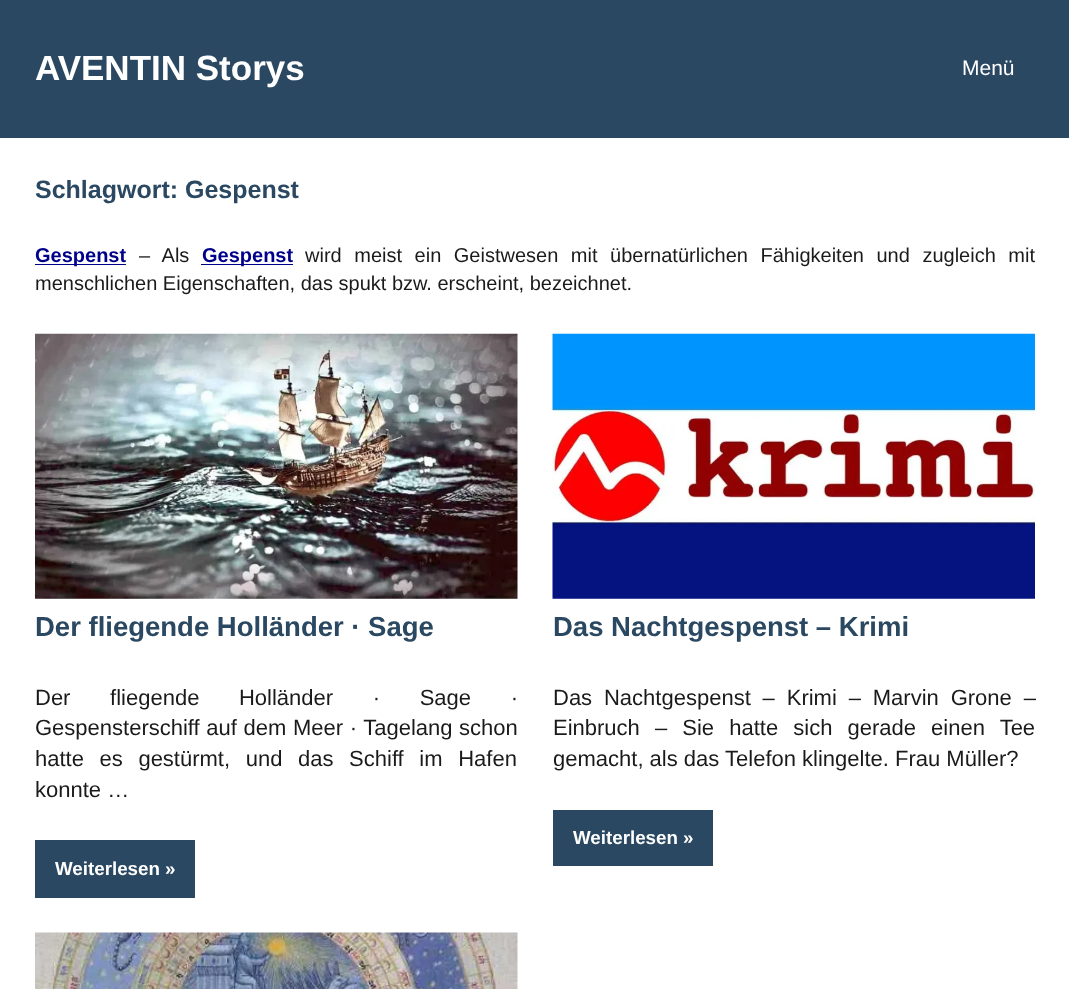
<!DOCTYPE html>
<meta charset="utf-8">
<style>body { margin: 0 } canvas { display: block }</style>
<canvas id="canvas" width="1069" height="989"></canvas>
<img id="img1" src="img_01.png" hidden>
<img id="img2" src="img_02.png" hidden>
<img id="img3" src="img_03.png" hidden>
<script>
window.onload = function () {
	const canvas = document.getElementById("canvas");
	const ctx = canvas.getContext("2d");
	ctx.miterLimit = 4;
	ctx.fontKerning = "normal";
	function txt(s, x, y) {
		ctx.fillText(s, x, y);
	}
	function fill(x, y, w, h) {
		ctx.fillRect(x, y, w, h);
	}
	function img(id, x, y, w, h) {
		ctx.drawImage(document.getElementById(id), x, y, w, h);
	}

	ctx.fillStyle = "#2A4861";
	fill(0, 0, 1069, 989);
	ctx.fillStyle = "#FFFFFF";
	fill(0, 138, 1069, 851);
	ctx.fillStyle = "#00008B";
	fill(35, 264, 91, 1);
	fill(201, 264, 92, 1);
	img("img1", 35, 333, 483, 266);
	ctx.fillStyle = "#2A4861";
	fill(35, 840, 160, 58);
	img("img2", 552, 333, 483, 266);
	fill(553, 810, 160, 56);
	img("img3", 35, 932, 483, 57);
	ctx.font = "bold 35px Liberation Sans";
	ctx.fillStyle = "#FFFFFF";
	txt("AVENTIN Storys", 35, 80);
	ctx.font = "21px Liberation Sans";
	txt("Menü", 962, 75);
	ctx.font = "bold 25px Liberation Sans";
	ctx.fillStyle = "#2A4861";
	txt("Schlagwort: Gespenst", 35, 198);
	ctx.font = "bold 20px Liberation Sans";
	ctx.fillStyle = "#00008B";
	txt("Gespenst", 35, 262);
	ctx.wordSpacing = "7px";
	ctx.font = "20px Liberation Sans";
	ctx.fillStyle = "#1A1A1A";
	txt("– Als", 139, 262);
	ctx.wordSpacing = "0px";
	ctx.font = "bold 20px Liberation Sans";
	ctx.fillStyle = "#00008B";
	txt("Gespenst", 202, 262);
	ctx.wordSpacing = "7px";
	ctx.font = "20px Liberation Sans";
	ctx.fillStyle = "#1A1A1A";
	txt("wird meist ein Geistwesen mit übernatürlichen Fähigkeiten und zugleich mit", 305, 262);
	ctx.wordSpacing = "0px";
	txt("menschlichen Eigenschaften, das spukt bzw. erscheint, bezeichnet.", 35, 290);
	ctx.font = "bold 27.5px Liberation Sans";
	ctx.fillStyle = "#2A4861";
	txt("Der fliegende Holländer · Sage", 35, 636);
	ctx.wordSpacing = "33.5px";
	ctx.font = "22px Liberation Sans";
	ctx.fillStyle = "#1A1A1A";
	txt("Der fliegende Holländer · Sage ·", 35, 705);
	ctx.wordSpacing = "0.5px";
	txt("Gespensterschiff auf dem Meer · Tagelang schon", 35, 735);
	ctx.wordSpacing = "9.5px";
	txt("hatte es gestürmt, und das Schiff im Hafen", 35, 766);
	ctx.wordSpacing = "0px";
	txt("konnte …", 35, 797);
	ctx.font = "bold 18.75px Liberation Sans";
	ctx.fillStyle = "#FFFFFF";
	txt("Weiterlesen »", 55, 875);
	ctx.font = "bold 27.5px Liberation Sans";
	ctx.fillStyle = "#2A4861";
	txt("Das Nachtgespenst – Krimi", 553, 636);
	ctx.wordSpacing = "5.75px";
	ctx.font = "22px Liberation Sans";
	ctx.fillStyle = "#1A1A1A";
	txt("Das Nachtgespenst – Krimi – Marvin Grone –", 553, 705);
	ctx.wordSpacing = "9px";
	txt("Einbruch – Sie hatte sich gerade einen Tee", 553, 735);
	ctx.wordSpacing = "0px";
	txt("gemacht, als das Telefon klingelte. Frau Müller?", 553, 766);
	ctx.font = "bold 18.75px Liberation Sans";
	ctx.fillStyle = "#FFFFFF";
	txt("Weiterlesen »", 573, 844);
};
</script>
